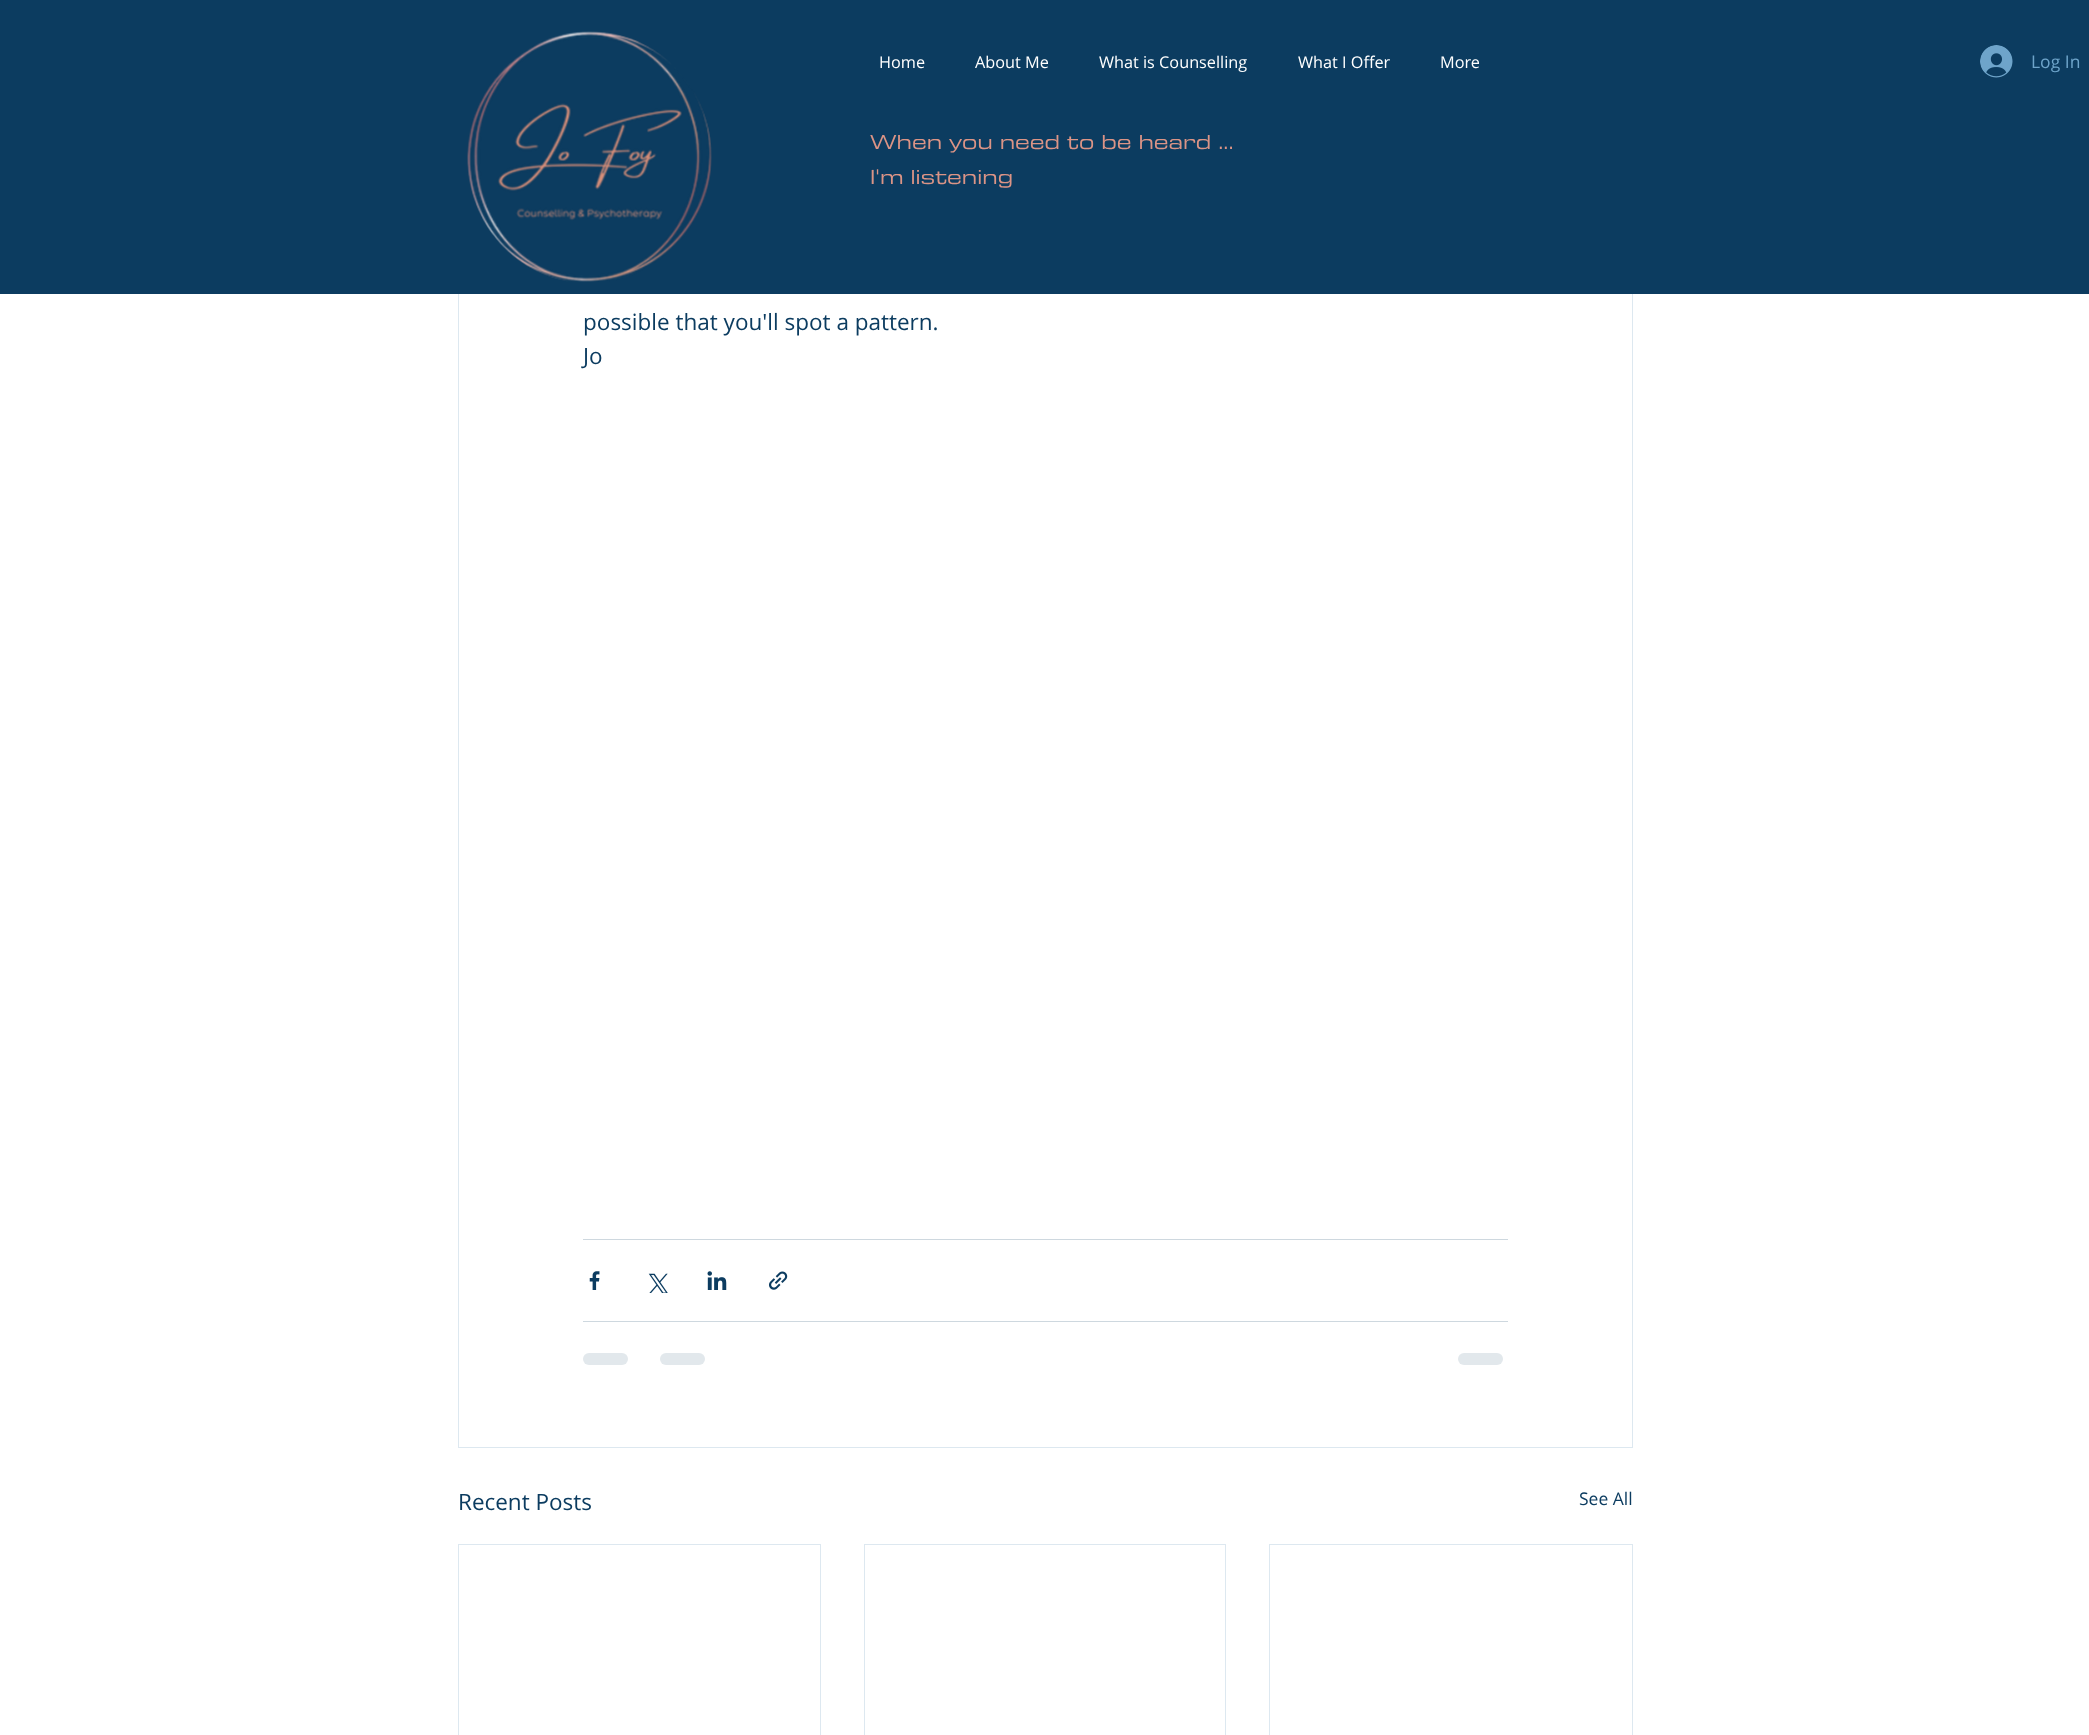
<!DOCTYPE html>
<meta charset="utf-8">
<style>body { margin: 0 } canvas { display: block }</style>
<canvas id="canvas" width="2089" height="1735"></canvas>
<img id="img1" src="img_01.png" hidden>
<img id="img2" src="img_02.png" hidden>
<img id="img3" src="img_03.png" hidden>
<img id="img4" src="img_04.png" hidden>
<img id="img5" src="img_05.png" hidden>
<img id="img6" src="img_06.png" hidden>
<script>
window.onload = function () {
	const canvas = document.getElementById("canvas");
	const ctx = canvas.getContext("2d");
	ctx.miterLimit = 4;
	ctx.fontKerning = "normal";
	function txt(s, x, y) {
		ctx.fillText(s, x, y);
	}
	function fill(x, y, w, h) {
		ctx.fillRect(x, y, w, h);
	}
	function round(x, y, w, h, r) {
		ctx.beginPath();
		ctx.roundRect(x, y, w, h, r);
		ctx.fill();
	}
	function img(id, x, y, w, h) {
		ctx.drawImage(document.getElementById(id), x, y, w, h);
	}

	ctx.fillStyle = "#FFFFFF";
	fill(0, 0, 2089, 1735);
	ctx.strokeStyle = "#DDE8F0";
	ctx.strokeRect(458.5, -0.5, 1174, 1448);
	ctx.fillStyle = "#0C3C60";
	fill(0, 0, 2089, 294);
	img("img1", 467, 31, 245, 251);
	img("img2", 1980, 45, 33, 33);
	ctx.fillStyle = "#CED8DF";
	fill(583, 1239, 925, 1);
	img("img3", 589, 1271, 11, 19);
	img("img4", 648, 1273, 20, 20);
	img("img5", 707, 1271, 20, 19);
	img("img6", 769, 1271, 19, 19);
	fill(583, 1321, 925, 1);
	ctx.fillStyle = "#E2E8EC";
	round(583, 1353, 45, 12, 6);
	round(660, 1353, 45, 12, 6);
	round(1458, 1353, 45, 12, 6);
	ctx.strokeRect(458.5, 1544.5, 362, 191);
	ctx.strokeRect(864.5, 1544.5, 361, 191);
	ctx.strokeRect(1269.5, 1544.5, 363, 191);
	ctx.font = "16.25px Open Sans";
	ctx.fillStyle = "#FFFFFF";
	txt("Home", 879, 68);
	txt("About Me", 975, 68);
	txt("What is Counselling", 1099, 68);
	txt("What I Offer", 1298, 68);
	txt("More", 1440, 68);
	ctx.font = "17.5px Open Sans";
	ctx.fillStyle = "#6EA4CA";
	txt("Log In", 2031, 68);
	ctx.font = "25px 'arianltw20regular'";
	ctx.fillStyle = "#DB9486";
	txt("When you need to be heard ...", 870, 149);
	txt("I'm listening", 870, 184);
	ctx.font = "22.5px Open Sans";
	ctx.fillStyle = "#0C3C60";
	txt("possible that you'll spot a pattern.", 583, 330);
	txt("Jo", 583, 364);
	txt("Recent Posts", 458, 1510);
	ctx.font = "17.5px Open Sans";
	txt("See All", 1579, 1505);
};
</script>
